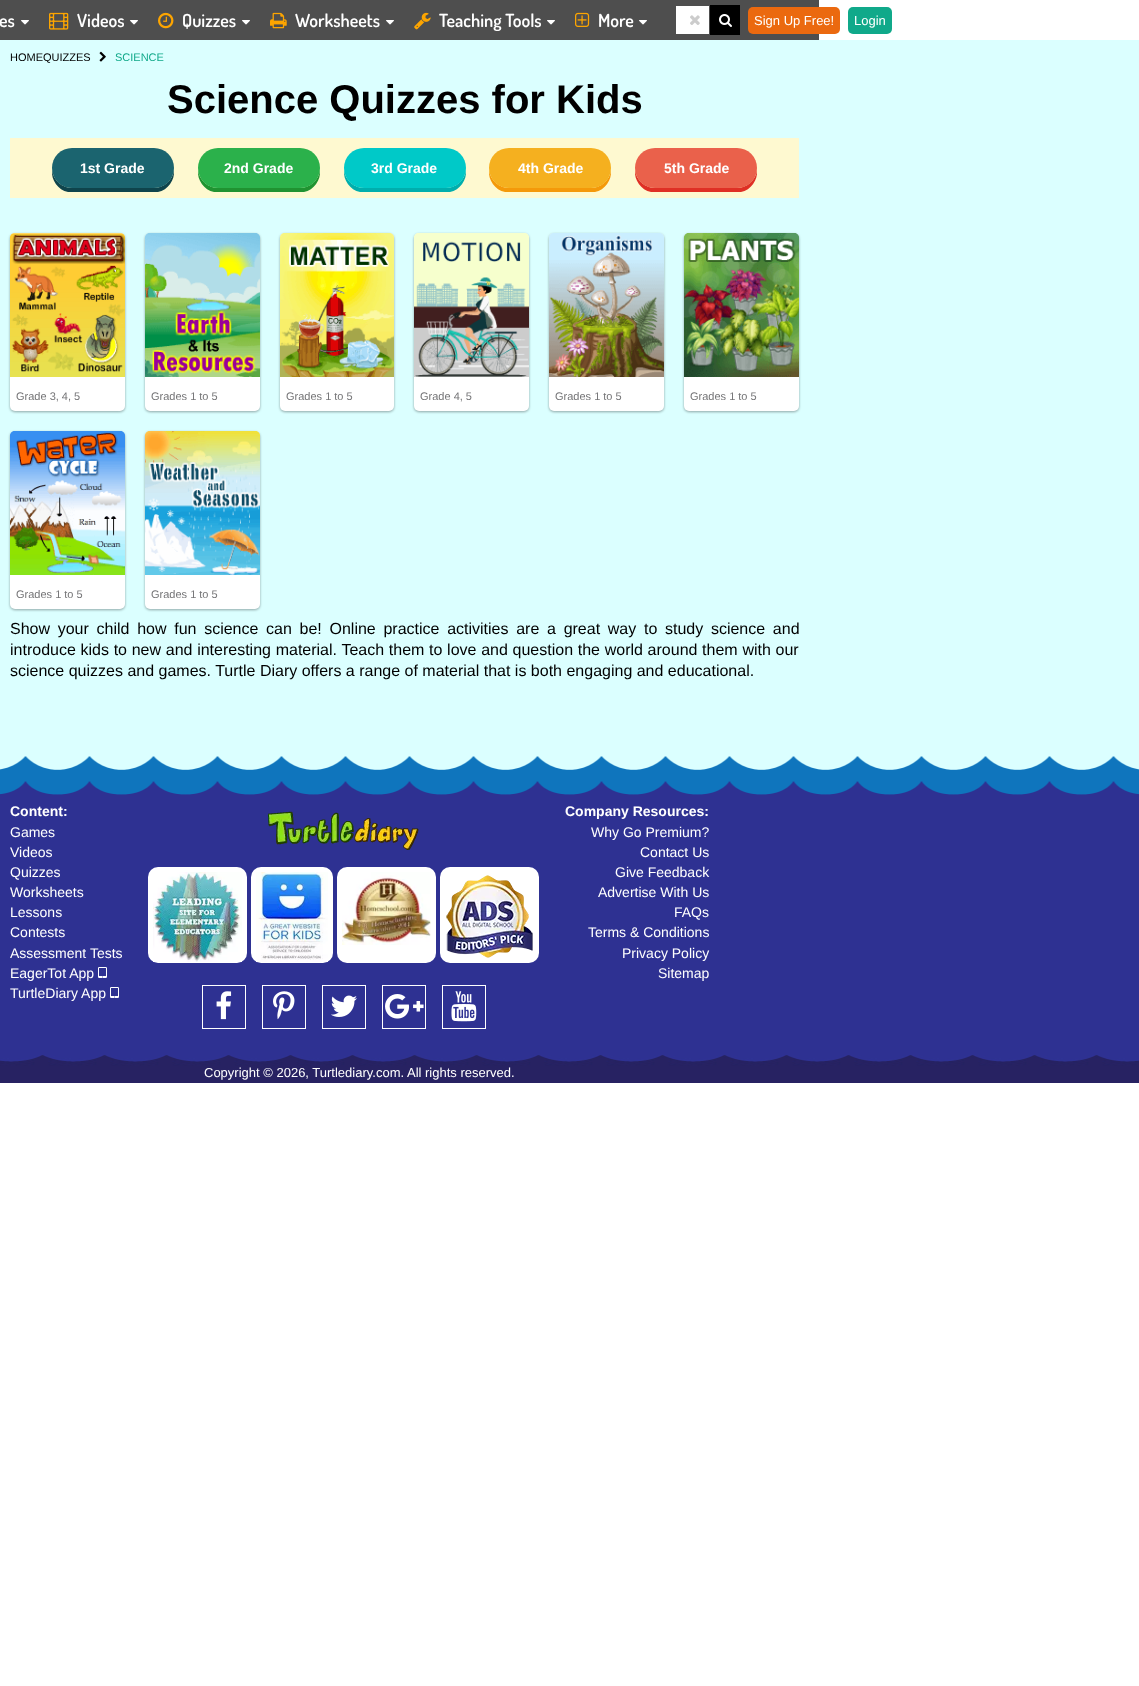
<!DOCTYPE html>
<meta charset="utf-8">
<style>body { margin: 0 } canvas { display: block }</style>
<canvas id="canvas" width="1139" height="1686"></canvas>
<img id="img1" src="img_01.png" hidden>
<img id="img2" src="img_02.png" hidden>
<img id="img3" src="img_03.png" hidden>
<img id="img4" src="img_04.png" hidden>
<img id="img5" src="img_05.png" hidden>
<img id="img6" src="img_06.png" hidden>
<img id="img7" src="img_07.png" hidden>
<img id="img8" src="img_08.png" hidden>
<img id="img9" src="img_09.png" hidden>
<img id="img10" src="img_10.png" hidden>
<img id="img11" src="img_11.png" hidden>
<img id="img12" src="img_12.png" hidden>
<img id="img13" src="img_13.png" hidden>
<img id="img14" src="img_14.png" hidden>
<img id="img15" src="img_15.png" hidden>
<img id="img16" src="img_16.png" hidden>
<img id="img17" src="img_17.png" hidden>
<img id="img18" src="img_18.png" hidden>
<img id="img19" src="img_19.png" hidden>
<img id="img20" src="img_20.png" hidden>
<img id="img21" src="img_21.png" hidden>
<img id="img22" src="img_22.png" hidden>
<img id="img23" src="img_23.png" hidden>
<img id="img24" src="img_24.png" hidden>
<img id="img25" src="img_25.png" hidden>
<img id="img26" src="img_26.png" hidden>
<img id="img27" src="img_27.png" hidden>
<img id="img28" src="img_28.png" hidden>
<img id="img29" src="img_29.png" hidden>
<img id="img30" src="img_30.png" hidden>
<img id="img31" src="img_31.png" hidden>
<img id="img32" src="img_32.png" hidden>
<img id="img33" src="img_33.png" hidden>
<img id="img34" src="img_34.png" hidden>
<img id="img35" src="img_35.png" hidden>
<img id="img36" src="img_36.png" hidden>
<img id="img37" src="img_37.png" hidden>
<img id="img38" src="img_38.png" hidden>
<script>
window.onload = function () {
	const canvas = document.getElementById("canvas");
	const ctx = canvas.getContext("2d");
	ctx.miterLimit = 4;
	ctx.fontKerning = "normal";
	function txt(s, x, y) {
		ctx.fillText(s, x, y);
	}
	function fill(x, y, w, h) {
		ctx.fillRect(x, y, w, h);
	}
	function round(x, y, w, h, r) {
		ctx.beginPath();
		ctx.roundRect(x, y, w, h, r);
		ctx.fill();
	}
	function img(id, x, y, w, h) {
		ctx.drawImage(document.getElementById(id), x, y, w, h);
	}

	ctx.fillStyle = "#FFFFFF";
	fill(0, 0, 1139, 1686);
	ctx.fillStyle = "#4E4E4E";
	fill(0, 0, 819, 40);
	img("img1", 21, 20, 8, 5);
	img("img2", 49, 12, 20, 18);
	img("img1", 130, 20, 8, 5);
	img("img3", 158, 12, 16, 17);
	img("img1", 242, 20, 8, 5);
	img("img4", 270, 12, 17, 17);
	img("img1", 386, 20, 8, 5);
	img("img5", 414, 12, 17, 18);
	img("img1", 547, 20, 8, 5);
	img("img6", 575, 12, 15, 15);
	img("img1", 639, 20, 8, 5);
	ctx.fillStyle = "#FFFFFF";
	fill(676, 6, 33, 28);
	img("img7", 690, 15, 10, 10);
	ctx.fillStyle = "#000000";
	fill(710, 5, 30, 30);
	img("img8", 719, 14, 13, 13);
	ctx.fillStyle = "#EB690F";
	round(748, 7, 92, 27, 5);
	ctx.fillStyle = "#10A98A";
	round(848, 7, 44, 27, 5);
	ctx.fillStyle = "#DBFFFF";
	fill(0, 40, 1139, 730);
	img("img9", 99, 51, 7, 11);
	ctx.fillStyle = "#FEF9D0";
	fill(10, 138, 789, 60);
	ctx.fillStyle = "#0F444C";
	ctx.beginPath();
	ctx.moveTo(52, 170);
	ctx.bezierCurveTo(51, 180, 58, 190, 68, 192);
	ctx.lineTo(86, 192);
	ctx.lineTo(158, 192);
	ctx.bezierCurveTo(168, 190, 175, 180, 174, 170);
	ctx.bezierCurveTo(173, 180, 164, 188, 154, 188);
	ctx.lineTo(72, 188);
	ctx.bezierCurveTo(62, 188, 53, 180, 52, 170);
	ctx.closePath();
	ctx.fill();
	ctx.fillStyle = "#1B646F";
	round(52, 148, 122, 40, 20);
	ctx.fillStyle = "#209331";
	ctx.beginPath();
	ctx.moveTo(198, 170);
	ctx.bezierCurveTo(197, 180, 204, 190, 214, 192);
	ctx.lineTo(232, 192);
	ctx.lineTo(304, 192);
	ctx.bezierCurveTo(314, 190, 321, 180, 320, 170);
	ctx.bezierCurveTo(319, 180, 310, 188, 300, 188);
	ctx.lineTo(218, 188);
	ctx.bezierCurveTo(208, 188, 199, 180, 198, 170);
	ctx.closePath();
	ctx.fill();
	ctx.fillStyle = "#2BB14B";
	round(198, 148, 122, 40, 20);
	ctx.fillStyle = "#00AEAD";
	ctx.beginPath();
	ctx.moveTo(344, 170);
	ctx.bezierCurveTo(343, 180, 350, 190, 360, 192);
	ctx.lineTo(378, 192);
	ctx.lineTo(450, 192);
	ctx.bezierCurveTo(460, 190, 467, 180, 466, 170);
	ctx.bezierCurveTo(465, 180, 456, 188, 446, 188);
	ctx.lineTo(364, 188);
	ctx.bezierCurveTo(354, 188, 345, 180, 344, 170);
	ctx.closePath();
	ctx.fill();
	ctx.fillStyle = "#00C9C8";
	round(344, 148, 122, 40, 20);
	ctx.fillStyle = "#F4990A";
	ctx.beginPath();
	ctx.moveTo(489, 170);
	ctx.bezierCurveTo(488, 180, 495, 190, 505, 192);
	ctx.lineTo(523, 192);
	ctx.lineTo(595, 192);
	ctx.bezierCurveTo(605, 190, 612, 180, 611, 170);
	ctx.bezierCurveTo(610, 180, 601, 188, 591, 188);
	ctx.lineTo(509, 188);
	ctx.bezierCurveTo(499, 188, 490, 180, 489, 170);
	ctx.closePath();
	ctx.fill();
	ctx.fillStyle = "#F5B01F";
	round(489, 148, 122, 40, 20);
	ctx.fillStyle = "#DF3025";
	ctx.beginPath();
	ctx.moveTo(635, 170);
	ctx.bezierCurveTo(634, 180, 641, 190, 651, 192);
	ctx.lineTo(669, 192);
	ctx.lineTo(741, 192);
	ctx.bezierCurveTo(751, 190, 758, 180, 757, 170);
	ctx.bezierCurveTo(756, 180, 747, 188, 737, 188);
	ctx.lineTo(655, 188);
	ctx.bezierCurveTo(645, 188, 636, 180, 635, 170);
	ctx.closePath();
	ctx.fill();
	ctx.fillStyle = "#EA614B";
	round(635, 148, 122, 40, 20);
	ctx.fillStyle = "rgba(0, 0, 0, 0.24)";
	ctx.filter = "blur(1px)";
	ctx.beginPath();
	ctx.roundRect(10, 234, 115, 178, 5);
	ctx.fill();
	ctx.filter = "none";
	ctx.fillStyle = "rgba(0, 0, 0, 0.12)";
	ctx.filter = "blur(1.5px)";
	ctx.beginPath();
	ctx.roundRect(10, 234, 115, 178, 5);
	ctx.fill();
	ctx.filter = "none";
	ctx.fillStyle = "#FFFFFF";
	round(10, 233, 115, 178, 5);
	img("img10", 10, 233, 115, 144);
	img("img11", 10, 233, 115, 5);
	ctx.fillStyle = "rgba(0, 0, 0, 0.24)";
	ctx.filter = "blur(1px)";
	ctx.beginPath();
	ctx.roundRect(145, 234, 115, 178, 5);
	ctx.fill();
	ctx.filter = "none";
	ctx.fillStyle = "rgba(0, 0, 0, 0.12)";
	ctx.filter = "blur(1.5px)";
	ctx.beginPath();
	ctx.roundRect(145, 234, 115, 178, 5);
	ctx.fill();
	ctx.filter = "none";
	ctx.fillStyle = "#FFFFFF";
	round(145, 233, 115, 178, 5);
	img("img12", 145, 233, 115, 144);
	img("img13", 145, 233, 115, 5);
	ctx.fillStyle = "rgba(0, 0, 0, 0.24)";
	ctx.filter = "blur(1px)";
	ctx.beginPath();
	ctx.roundRect(280, 234, 114, 178, 5);
	ctx.fill();
	ctx.filter = "none";
	ctx.fillStyle = "rgba(0, 0, 0, 0.12)";
	ctx.filter = "blur(1.5px)";
	ctx.beginPath();
	ctx.roundRect(280, 234, 114, 178, 5);
	ctx.fill();
	ctx.filter = "none";
	ctx.fillStyle = "#FFFFFF";
	round(280, 233, 114, 178, 5);
	img("img14", 280, 233, 114, 144);
	img("img15", 280, 233, 114, 5);
	ctx.fillStyle = "rgba(0, 0, 0, 0.24)";
	ctx.filter = "blur(1px)";
	ctx.beginPath();
	ctx.roundRect(414, 234, 115, 178, 5);
	ctx.fill();
	ctx.filter = "none";
	ctx.fillStyle = "rgba(0, 0, 0, 0.12)";
	ctx.filter = "blur(1.5px)";
	ctx.beginPath();
	ctx.roundRect(414, 234, 115, 178, 5);
	ctx.fill();
	ctx.filter = "none";
	ctx.fillStyle = "#FFFFFF";
	round(414, 233, 115, 178, 5);
	img("img16", 414, 233, 115, 144);
	img("img17", 414, 233, 115, 5);
	ctx.fillStyle = "rgba(0, 0, 0, 0.24)";
	ctx.filter = "blur(1px)";
	ctx.beginPath();
	ctx.roundRect(549, 234, 115, 178, 5);
	ctx.fill();
	ctx.filter = "none";
	ctx.fillStyle = "rgba(0, 0, 0, 0.12)";
	ctx.filter = "blur(1.5px)";
	ctx.beginPath();
	ctx.roundRect(549, 234, 115, 178, 5);
	ctx.fill();
	ctx.filter = "none";
	ctx.fillStyle = "#FFFFFF";
	round(549, 233, 115, 178, 5);
	img("img18", 549, 233, 115, 144);
	img("img19", 549, 233, 115, 5);
	ctx.fillStyle = "rgba(0, 0, 0, 0.24)";
	ctx.filter = "blur(1px)";
	ctx.beginPath();
	ctx.roundRect(684, 234, 115, 178, 5);
	ctx.fill();
	ctx.filter = "none";
	ctx.fillStyle = "rgba(0, 0, 0, 0.12)";
	ctx.filter = "blur(1.5px)";
	ctx.beginPath();
	ctx.roundRect(684, 234, 115, 178, 5);
	ctx.fill();
	ctx.filter = "none";
	ctx.fillStyle = "#FFFFFF";
	round(684, 233, 115, 178, 5);
	img("img20", 684, 233, 115, 144);
	img("img21", 684, 233, 115, 5);
	ctx.fillStyle = "rgba(0, 0, 0, 0.24)";
	ctx.filter = "blur(1px)";
	ctx.beginPath();
	ctx.roundRect(10, 432, 115, 178, 5);
	ctx.fill();
	ctx.filter = "none";
	ctx.fillStyle = "rgba(0, 0, 0, 0.12)";
	ctx.filter = "blur(1.5px)";
	ctx.beginPath();
	ctx.roundRect(10, 432, 115, 178, 5);
	ctx.fill();
	ctx.filter = "none";
	ctx.fillStyle = "#FFFFFF";
	round(10, 431, 115, 178, 5);
	img("img22", 10, 431, 115, 144);
	img("img23", 10, 431, 115, 5);
	ctx.fillStyle = "rgba(0, 0, 0, 0.24)";
	ctx.filter = "blur(1px)";
	ctx.beginPath();
	ctx.roundRect(145, 432, 115, 178, 5);
	ctx.fill();
	ctx.filter = "none";
	ctx.fillStyle = "rgba(0, 0, 0, 0.12)";
	ctx.filter = "blur(1.5px)";
	ctx.beginPath();
	ctx.roundRect(145, 432, 115, 178, 5);
	ctx.fill();
	ctx.filter = "none";
	ctx.fillStyle = "#FFFFFF";
	round(145, 431, 115, 178, 5);
	img("img24", 145, 431, 115, 144);
	img("img25", 145, 431, 115, 5);
	ctx.fillStyle = "#2E3192";
	fill(0, 781, 1139, 274);
	img("img26", 0, 1055, 1139, 28);
	img("img27", 0, 756, 1139, 39);
	img("img28", 98, 967, 9, 11);
	img("img28", 110, 987, 9, 11);
	img("img29", 268, 811, 151, 39);
	ctx.fillStyle = "#FFFFFF";
	round(148, 867, 99, 96, 10);
	img("img30", 153, 872, 89, 90);
	round(251, 867, 82, 96, 10);
	img("img31", 256, 872, 72, 90);
	round(337, 867, 99, 96, 10);
	img("img32", 342, 872, 89, 73);
	round(440, 867, 99, 96, 10);
	img("img33", 446, 875, 87, 83);
	ctx.strokeStyle = "#FFFFFF";
	ctx.strokeRect(202.5, 985.5, 43, 43);
	img("img34", 216, 991, 16, 29);
	ctx.strokeRect(262.5, 985.5, 43, 43);
	img("img35", 273, 991, 22, 29);
	ctx.strokeRect(322.5, 985.5, 43, 43);
	img("img36", 331, 995, 26, 22);
	ctx.strokeRect(382.5, 985.5, 43, 43);
	img("img37", 385, 994, 39, 25);
	ctx.strokeRect(442.5, 985.5, 43, 43);
	img("img38", 451, 991, 26, 31);
	ctx.font = "600 18px Dosis";
	txt("es", -1, 27);
	txt("Videos", 77, 27);
	txt("Quizzes", 182, 27);
	txt("Worksheets", 295, 27);
	txt("Teaching Tools", 439, 27);
	txt("More", 598, 27);
	ctx.font = "13px Liberation Sans";
	txt("Sign Up Free!", 754, 25);
	txt("Login", 854, 25);
	ctx.font = "11px Liberation Sans";
	ctx.fillStyle = "#000000";
	txt("HOMEQUIZZES", 10, 61);
	ctx.fillStyle = "#10A98A";
	txt("SCIENCE", 115, 61);
	ctx.font = "bold 40px Liberation Sans";
	ctx.fillStyle = "#000000";
	txt("Science Quizzes for Kids", 167, 113);
	ctx.font = "bold 14px Liberation Sans";
	ctx.fillStyle = "#FFFFFF";
	txt("1st Grade", 80, 173);
	txt("2nd Grade", 224, 173);
	txt("3rd Grade", 371, 173);
	txt("4th Grade", 518, 173);
	txt("5th Grade", 664, 173);
	ctx.font = "11px Liberation Sans";
	ctx.fillStyle = "#757577";
	txt("Grade 3, 4, 5", 16, 400);
	txt("Grades 1 to 5", 151, 400);
	txt("Grades 1 to 5", 286, 400);
	txt("Grade 4, 5", 420, 400);
	txt("Grades 1 to 5", 555, 400);
	txt("Grades 1 to 5", 690, 400);
	txt("Grades 1 to 5", 16, 598);
	txt("Grades 1 to 5", 151, 598);
	ctx.wordSpacing = "3.25px";
	ctx.font = "16px Liberation Sans";
	ctx.fillStyle = "#000000";
	txt("Show your child how fun science can be! Online practice activities are a great way to study science and", 10, 634);
	ctx.wordSpacing = "0.25px";
	txt("introduce kids to new and interesting material. Teach them to love and question the world around them with our", 10, 655);
	ctx.wordSpacing = "0px";
	txt("science quizzes and games. Turtle Diary offers a range of material that is both engaging and educational.", 10, 676);
	ctx.font = "bold 14px Liberation Sans";
	ctx.fillStyle = "#FFFFFF";
	txt("Content:", 10, 816);
	ctx.font = "14px Liberation Sans";
	txt("Games", 10, 837);
	txt("Videos", 10, 857);
	txt("Quizzes", 10, 877);
	txt("Worksheets", 10, 897);
	txt("Lessons", 10, 917);
	txt("Contests", 10, 937);
	txt("Assessment Tests", 10, 958);
	txt("EagerTot App", 10, 978);
	txt("TurtleDiary App", 10, 998);
	ctx.font = "bold 14px Liberation Sans";
	txt("Company Resources:", 565, 816);
	ctx.font = "14px Liberation Sans";
	txt("Why Go Premium?", 591, 837);
	txt("Contact Us", 640, 857);
	txt("Give Feedback", 615, 877);
	txt("Advertise With Us", 598, 897);
	txt("FAQs", 674, 917);
	txt("Terms & Conditions", 588, 937);
	txt("Privacy Policy", 622, 958);
	txt("Sitemap", 658, 978);
	ctx.font = "13px Liberation Sans";
	txt("Copyright © 2026, Turtlediary.com. All rights reserved.", 204, 1077);
};
</script>
